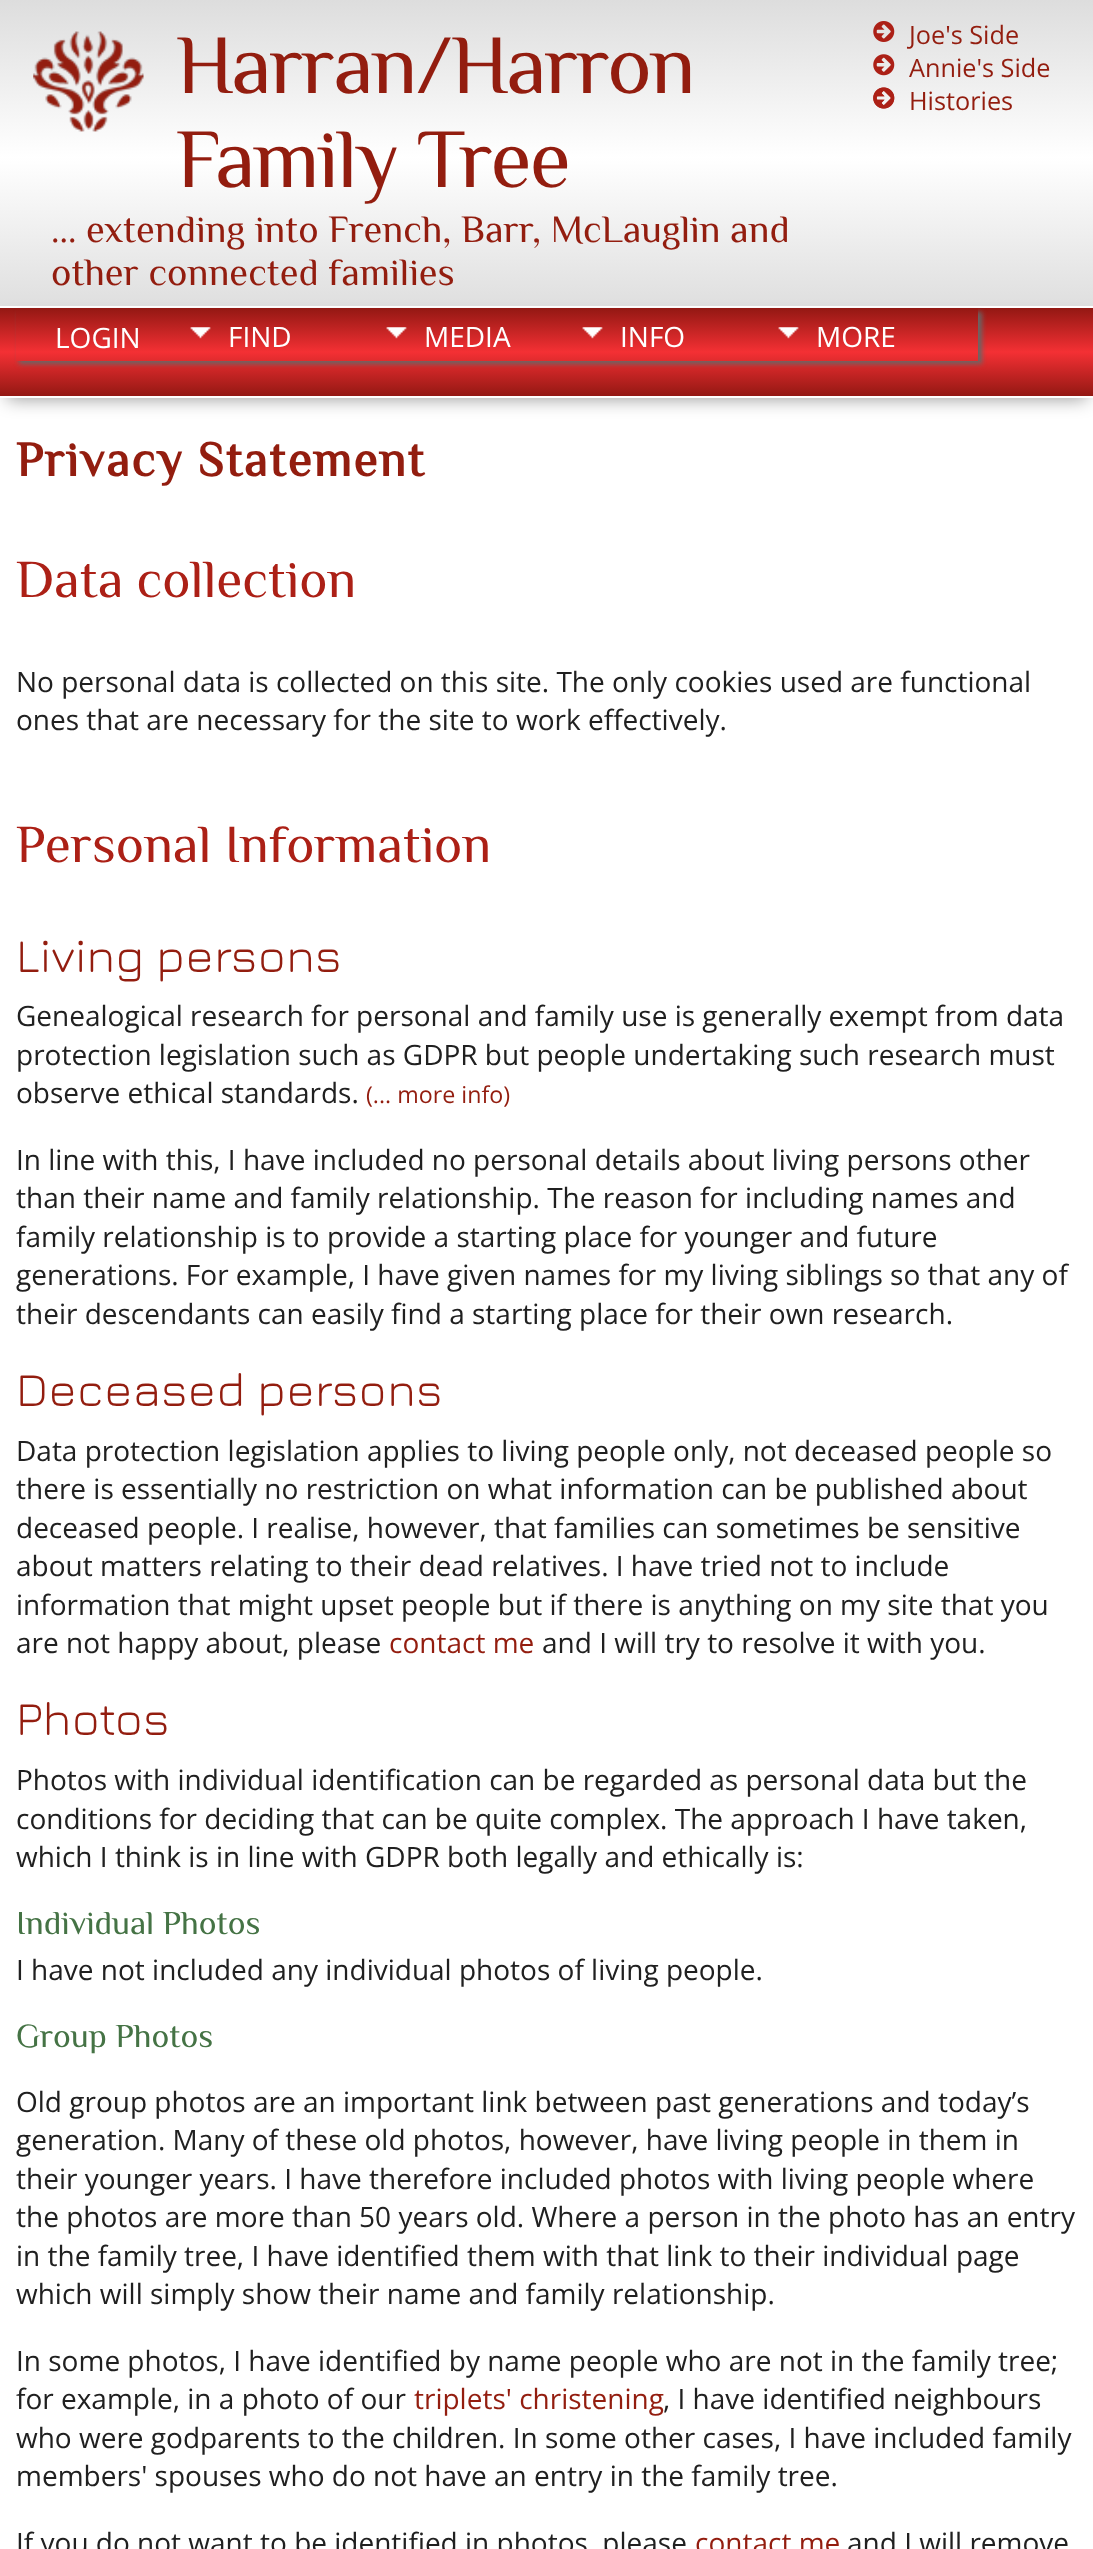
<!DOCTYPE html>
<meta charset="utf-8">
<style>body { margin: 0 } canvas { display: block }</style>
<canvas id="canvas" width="1093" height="2549"></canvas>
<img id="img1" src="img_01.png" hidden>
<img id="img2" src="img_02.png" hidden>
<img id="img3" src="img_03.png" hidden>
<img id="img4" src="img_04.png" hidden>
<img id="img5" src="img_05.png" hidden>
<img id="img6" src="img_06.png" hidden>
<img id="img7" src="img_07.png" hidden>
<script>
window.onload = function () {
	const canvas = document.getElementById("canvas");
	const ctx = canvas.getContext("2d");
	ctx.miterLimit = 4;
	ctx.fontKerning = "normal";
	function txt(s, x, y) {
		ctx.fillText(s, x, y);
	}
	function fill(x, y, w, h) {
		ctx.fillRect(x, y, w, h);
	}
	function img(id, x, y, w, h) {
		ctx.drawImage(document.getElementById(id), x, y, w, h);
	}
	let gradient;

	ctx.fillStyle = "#FFFFFF";
	fill(0, 0, 1093, 2549);
	gradient = ctx.createLinearGradient(547, 0, 547, 315);
	gradient.addColorStop(0, "#DDDDDD");
	gradient.addColorStop(0.5, "#FFFFFF");
	gradient.addColorStop(1, "#DDDDDD");
	ctx.fillStyle = gradient;
	fill(0, 0, 1093, 306);
	img("img1", 33, 31, 111, 101);
	img("img2", 873, 21, 22, 21);
	img("img3", 873, 54, 22, 22);
	img("img4", 873, 87, 22, 22);
	img("img5", 873, 87, 22, 22);
	ctx.fillStyle = "rgba(0, 0, 0, 0.4)";
	ctx.filter = "blur(9px)";
	ctx.beginPath();
	ctx.rect(7, 322, 1080, 77);
	ctx.fill();
	ctx.filter = "none";
	gradient = ctx.createLinearGradient(547, 308, 547, 396);
	gradient.addColorStop(0, "#931813");
	gradient.addColorStop(0.5, "#F43034");
	gradient.addColorStop(1, "#931813");
	ctx.fillStyle = gradient;
	fill(0, 308, 1093, 88);
	ctx.fillStyle = "#FFFFFF";
	fill(0, 306, 1093, 2);
	fill(0, 396, 1093, 2);
	ctx.save();
	ctx.beginPath();
	ctx.moveTo(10, 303);
	ctx.lineTo(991, 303);
	ctx.lineTo(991, 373);
	ctx.lineTo(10, 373);
	ctx.closePath();
	ctx.moveTo(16, 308);
	ctx.lineTo(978, 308);
	ctx.lineTo(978, 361);
	ctx.lineTo(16, 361);
	ctx.closePath();
	ctx.clip("evenodd");
	ctx.fillStyle = "#666666";
	ctx.filter = "blur(2.5px)";
	ctx.beginPath();
	ctx.rect(19, 312, 963, 52);
	ctx.fill();
	ctx.filter = "none";
	ctx.restore();
	img("img6", 190, 327, 21, 12);
	img("img6", 386, 327, 21, 12);
	img("img7", 582, 327, 21, 12);
	img("img7", 778, 327, 21, 12);
	ctx.letterSpacing = "-1.75px";
	ctx.font = "84px Philosopher";
	ctx.fillStyle = "#931D0F";
	txt("Harran/Harron", 176, 93);
	txt("Family Tree", 176, 187);
	ctx.letterSpacing = "0px";
	ctx.font = "38.5px Philosopher";
	txt("... extending into French, Barr, McLauglin and", 51, 242);
	txt("other connected families", 51, 285);
	ctx.font = "25.25px Open Sans";
	txt("Joe's Side", 909, 44);
	txt("Annie's Side", 909, 77);
	txt("Histories", 909, 110);
	ctx.font = "28px Open Sans";
	ctx.fillStyle = "#FFFFFF";
	txt("LOGIN", 55, 348);
	txt("FIND", 228, 347);
	txt("MEDIA", 424, 347);
	txt("INFO", 620, 347);
	txt("MORE", 816, 347);
	ctx.letterSpacing = "1.75px";
	ctx.font = "bold 49px Philosopher";
	ctx.fillStyle = "#931D0F";
	txt("Privacy Statement", 16, 476);
	ctx.letterSpacing = "0px";
	ctx.font = "53.25px Philosopher";
	ctx.fillStyle = "#AC2016";
	txt("Data collection", 16, 597);
	ctx.font = "28px Open Sans";
	ctx.fillStyle = "#202020";
	txt("No personal data is collected on this site. The only cookies used are functional", 16, 692);
	txt("ones that are necessary for the site to work effectively.", 16, 730);
	ctx.font = "53.25px Philosopher";
	ctx.fillStyle = "#AC2016";
	txt("Personal Information", 16, 862);
	ctx.font = "300 47.5px Jura";
	ctx.fillStyle = "#931D0F";
	txt("Living persons", 16, 972);
	ctx.font = "28px Open Sans";
	ctx.fillStyle = "#202020";
	txt("Genealogical research for personal and family use is generally exempt from data", 16, 1026);
	txt("protection legislation such as GDPR but people undertaking such research must", 16, 1065);
	txt("observe ethical standards.", 16, 1103);
	ctx.font = "23.25px Open Sans";
	ctx.fillStyle = "#931D0F";
	txt("(... more info)", 366, 1103);
	ctx.font = "28px Open Sans";
	ctx.fillStyle = "#202020";
	txt("In line with this, I have included no personal details about living persons other", 16, 1170);
	txt("than their name and family relationship. The reason for including names and", 16, 1208);
	txt("family relationship is to provide a starting place for younger and future", 16, 1247);
	txt("generations. For example, I have given names for my living siblings so that any of", 16, 1285);
	txt("their descendants can easily find a starting place for their own research.", 16, 1324);
	ctx.font = "300 47.5px Jura";
	ctx.fillStyle = "#931D0F";
	txt("Deceased persons", 16, 1406);
	ctx.font = "28px Open Sans";
	ctx.fillStyle = "#202020";
	txt("Data protection legislation applies to living people only, not deceased people so", 16, 1461);
	txt("there is essentially no restriction on what information can be published about", 16, 1499);
	txt("deceased people. I realise, however, that families can sometimes be sensitive", 16, 1538);
	txt("about matters relating to their dead relatives. I have tried not to include", 16, 1576);
	txt("information that might upset people but if there is anything on my site that you", 16, 1615);
	txt("are not happy about, please", 16, 1653);
	ctx.fillStyle = "#931D0F";
	txt("contact me", 389, 1653);
	ctx.fillStyle = "#202020";
	txt("and I will try to resolve it with you.", 542, 1653);
	ctx.font = "300 47.5px Jura";
	ctx.fillStyle = "#931D0F";
	txt("Photos", 16, 1735);
	ctx.font = "28px Open Sans";
	ctx.fillStyle = "#202020";
	txt("Photos with individual identification can be regarded as personal data but the", 16, 1790);
	txt("conditions for deciding that can be quite complex. The approach I have taken,", 16, 1829);
	txt("which I think is in line with GDPR both legally and ethically is:", 16, 1867);
	ctx.font = "33.5px Philosopher";
	ctx.fillStyle = "#457345";
	txt("Individual Photos", 16, 1934);
	ctx.font = "28px Open Sans";
	ctx.fillStyle = "#202020";
	txt("I have not included any individual photos of living people.", 16, 1980);
	ctx.font = "33.5px Philosopher";
	ctx.fillStyle = "#457345";
	txt("Group Photos", 16, 2047);
	ctx.font = "28px Open Sans";
	ctx.fillStyle = "#202020";
	txt("Old group photos are an important link between past generations and today’s", 16, 2112);
	txt("generation. Many of these old photos, however, have living people in them in", 16, 2150);
	txt("their younger years. I have therefore included photos with living people where", 16, 2189);
	txt("the photos are more than 50 years old. Where a person in the photo has an entry", 16, 2227);
	txt("in the family tree, I have identified them with that link to their individual page", 16, 2266);
	txt("which will simply show their name and family relationship.", 16, 2304);
	txt("In some photos, I have identified by name people who are not in the family tree;", 16, 2371);
	txt("for example, in a photo of our", 16, 2409);
	ctx.fillStyle = "#931D0F";
	txt("triplets' christening", 414, 2409);
	ctx.fillStyle = "#202020";
	txt(", I have identified neighbours", 663, 2409);
	txt("who were godparents to the children. In some other cases, I have included family", 16, 2448);
	txt("members' spouses who do not have an entry in the family tree.", 16, 2486);
	txt("If you do not want to be identified in photos, please", 16, 2553);
	ctx.fillStyle = "#931D0F";
	txt("contact me", 695, 2553);
	ctx.fillStyle = "#202020";
	txt("and I will remove", 847, 2553);
};
</script>
